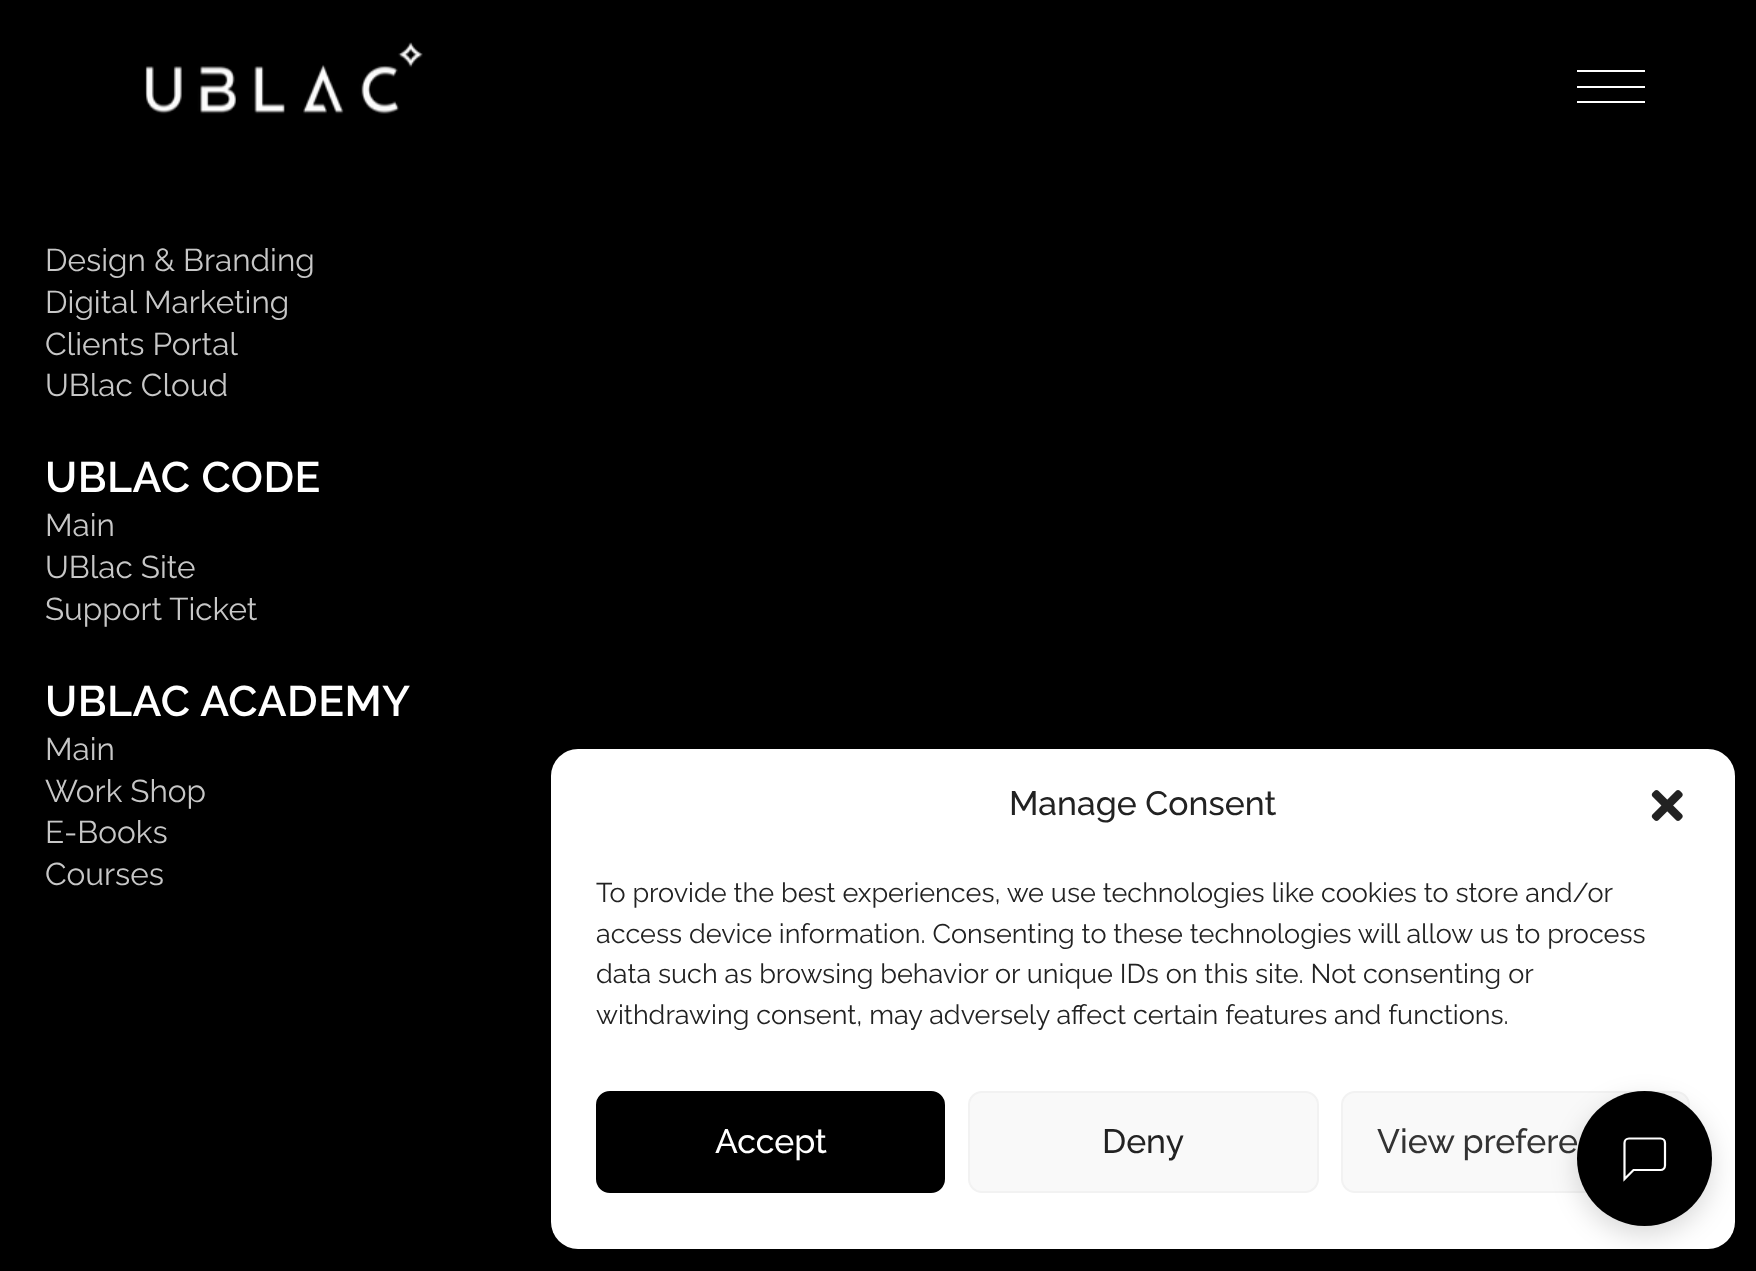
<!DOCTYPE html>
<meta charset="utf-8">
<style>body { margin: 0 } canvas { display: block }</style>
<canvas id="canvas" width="1756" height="1271"></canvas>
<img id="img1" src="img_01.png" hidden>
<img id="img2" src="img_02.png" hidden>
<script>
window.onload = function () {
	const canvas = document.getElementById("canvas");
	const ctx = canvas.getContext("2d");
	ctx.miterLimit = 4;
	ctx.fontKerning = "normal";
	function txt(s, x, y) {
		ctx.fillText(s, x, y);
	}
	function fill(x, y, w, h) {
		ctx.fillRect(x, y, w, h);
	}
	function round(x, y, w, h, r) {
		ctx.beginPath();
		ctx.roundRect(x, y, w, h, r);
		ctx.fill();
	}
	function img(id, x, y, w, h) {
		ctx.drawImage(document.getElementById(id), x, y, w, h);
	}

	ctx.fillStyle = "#000000";
	fill(0, 0, 1756, 1271);
	img("img1", 145, 42, 278, 72);
	ctx.fillStyle = "#FFFFFF";
	fill(1577, 70, 68, 2);
	fill(1577, 86, 68, 2);
	fill(1577, 101, 68, 2);
	round(551, 749, 1184, 500, 27);
	img("img2", 1651, 790, 32, 31);
	ctx.fillStyle = "#000000";
	ctx.beginPath();
	ctx.roundRect(597, 1092, 347, 100, 13);
	ctx.fill();
	ctx.strokeStyle = "#000000";
	ctx.lineWidth = 2;
	ctx.stroke();
	ctx.fillStyle = "#F9F9F9";
	ctx.beginPath();
	ctx.roundRect(969, 1092, 349, 100, 13);
	ctx.fill();
	ctx.strokeStyle = "#F2F2F2";
	ctx.stroke();
	ctx.beginPath();
	ctx.roundRect(1342, 1092, 347, 100, 13);
	ctx.fill();
	ctx.stroke();
	ctx.fillStyle = "rgba(0, 0, 0, 0.15)";
	ctx.filter = "blur(13.5px)";
	ctx.beginPath();
	ctx.roundRect(1577, 1100, 135, 135, 67.5);
	ctx.fill();
	ctx.filter = "none";
	ctx.font = "31.5px Raleway";
	ctx.fillStyle = "#C7C7C7";
	txt("Design & Branding", 45, 271);
	txt("Digital Marketing", 45, 313);
	txt("Clients Portal", 45, 355);
	txt("UBlac Cloud", 45, 396);
	ctx.letterSpacing = "0.5px";
	ctx.font = "600 42.75px Raleway";
	ctx.fillStyle = "#FFFFFF";
	txt("UBLAC CODE", 45, 492);
	ctx.letterSpacing = "0px";
	ctx.font = "31.5px Raleway";
	ctx.fillStyle = "#C7C7C7";
	txt("Main", 45, 536);
	txt("UBlac Site", 45, 578);
	txt("Support Ticket", 45, 620);
	ctx.letterSpacing = "0.5px";
	ctx.font = "600 42.75px Raleway";
	ctx.fillStyle = "#FFFFFF";
	txt("UBLAC ACADEMY", 45, 716);
	ctx.letterSpacing = "0px";
	ctx.font = "31.5px Raleway";
	ctx.fillStyle = "#C7C7C7";
	txt("Main", 45, 760);
	txt("Work Shop", 45, 802);
	txt("E-Books", 45, 843);
	txt("Courses", 45, 885);
	ctx.font = "500 33.75px Raleway";
	ctx.fillStyle = "#222222";
	txt("Manage Consent", 1009, 815);
	ctx.font = "27px Raleway";
	txt("To provide the best experiences, we use technologies like cookies to store and/or", 596, 902);
	txt("access device information. Consenting to these technologies will allow us to process", 596, 943);
	txt("data such as browsing behavior or unique IDs on this site. Not consenting or", 596, 983);
	txt("withdrawing consent, may adversely affect certain features and functions.", 596, 1024);
	ctx.font = "500 33.75px Raleway";
	ctx.fillStyle = "#FFFFFF";
	txt("Accept", 715, 1153);
	ctx.fillStyle = "#222222";
	txt("Deny", 1102, 1153);
	ctx.fillStyle = "#333333";
	txt("View prefere", 1377, 1153);
	ctx.fillStyle = "#000000";
	ctx.beginPath();
	ctx.arc(1644.5, 1158.5, 67.5, 0, Math.PI * 2);
	ctx.fill();
	ctx.beginPath();
	ctx.moveTo(1665, 1165.5);
	ctx.bezierCurveTo(1665, 1168, 1663, 1170, 1660.5, 1170);
	ctx.lineTo(1633.5, 1170);
	ctx.lineTo(1624.5, 1179);
	ctx.lineTo(1624.5, 1143);
	ctx.bezierCurveTo(1624.5, 1140.5, 1626.5, 1138.5, 1629, 1138.5);
	ctx.lineTo(1660.5, 1138.5);
	ctx.bezierCurveTo(1663, 1138.5, 1665, 1140.5, 1665, 1143);
	ctx.closePath();
	ctx.strokeStyle = "#FFFFFF";
	ctx.lineWidth = 2.2;
	ctx.stroke();
};
</script>
